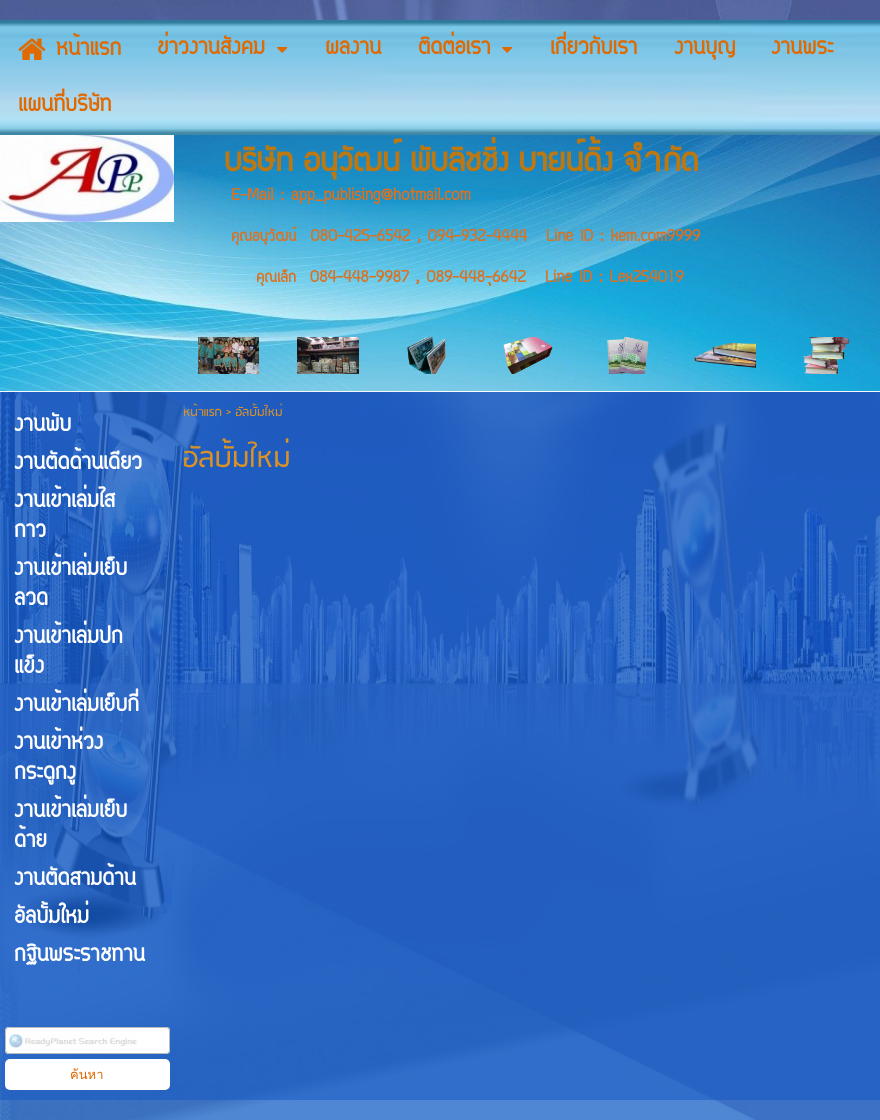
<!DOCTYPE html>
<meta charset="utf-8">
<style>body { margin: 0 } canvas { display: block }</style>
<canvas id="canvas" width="880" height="1120"></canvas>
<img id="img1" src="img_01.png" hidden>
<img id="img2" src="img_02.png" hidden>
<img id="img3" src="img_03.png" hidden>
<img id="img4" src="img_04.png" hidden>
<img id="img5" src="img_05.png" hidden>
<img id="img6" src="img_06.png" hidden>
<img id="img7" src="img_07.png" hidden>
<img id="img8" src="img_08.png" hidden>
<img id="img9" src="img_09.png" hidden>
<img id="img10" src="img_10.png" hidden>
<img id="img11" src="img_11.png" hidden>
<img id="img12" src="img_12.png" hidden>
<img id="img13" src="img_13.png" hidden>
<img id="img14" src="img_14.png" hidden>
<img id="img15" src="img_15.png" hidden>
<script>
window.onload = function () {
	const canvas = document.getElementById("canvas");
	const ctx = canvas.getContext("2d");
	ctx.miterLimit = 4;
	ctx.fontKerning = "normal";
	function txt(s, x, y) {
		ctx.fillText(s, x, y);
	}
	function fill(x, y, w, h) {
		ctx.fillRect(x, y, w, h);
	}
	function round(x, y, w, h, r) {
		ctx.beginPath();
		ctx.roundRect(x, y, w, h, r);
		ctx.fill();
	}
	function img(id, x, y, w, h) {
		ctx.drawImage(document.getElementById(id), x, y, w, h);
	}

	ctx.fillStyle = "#FFFFFF";
	fill(0, 0, 880, 1120);
	img("img1", 0, 0, 880, 1120);
	img("img2", 0, 20, 880, 115);
	img("img3", 18, 38, 28, 22);
	img("img4", 277, 47, 11, 6);
	img("img5", 502, 47, 11, 6);
	ctx.fillStyle = "rgba(255, 255, 255, 0.95)";
	fill(0, 391, 880, 1);
	img("img6", 0, 135, 880, 256);
	img("img7", 0, 135, 174, 87);
	img("img8", 198, 337, 61, 37);
	img("img9", 297, 337, 62, 37);
	img("img10", 407, 337, 39, 37);
	img("img11", 503, 337, 50, 37);
	img("img12", 607, 337, 42, 37);
	img("img13", 694, 342, 62, 26);
	img("img14", 802, 337, 47, 37);
	ctx.fillStyle = "rgba(17, 88, 194, 0.8)";
	fill(0, 392, 880, 708);
	ctx.fillStyle = "#FFFFFF";
	round(5, 1027, 165, 27, 4);
	img("img15", 9, 1034, 128, 14);
	ctx.beginPath();
	ctx.roundRect(5.5, 1027.5, 164, 26, 3.5);
	ctx.strokeStyle = "#BBBBBB";
	ctx.stroke();
	round(5, 1059, 165, 31, 5);
	ctx.fillStyle = "rgba(17, 91, 194, 0.6)";
	fill(0, 1100, 880, 20);
	ctx.font = "bold 30px Circular";
	ctx.fillStyle = "#E06900";
	txt("หน้าแรก", 56, 55);
	txt("ข่าวงานสังคม", 157, 54);
	txt("ผลงาน", 325, 54);
	txt("ติดต่อเรา", 418, 54);
	txt("เกี่ยวกับเรา", 550, 54);
	txt("งานบุญ", 674, 54);
	txt("งานพระ", 771, 54);
	txt("แผนที่บริษัท", 18, 111);
	ctx.font = "bold 35.25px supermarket";
	ctx.fillStyle = "#BD7811";
	txt("บริษัท อนุวัฒน์ พับลิชชิ่ง บายน์ดิ้ง จำกัด", 224, 171);
	ctx.font = "bold 20.5px Circular";
	ctx.fillStyle = "#DB7121";
	txt("E-Mail : app_publising@hotmail.com", 231, 200);
	txt("คุณอนุวัฒน์  080-425-6542 , 094-932-4444", 231, 241);
	txt("Line ID : kem.com9999", 546, 241);
	txt("คุณเล็ก  084-448-9987 , 089-448-ุุ6642", 256, 282);
	txt("Line ID : Lex254019", 545, 282);
	ctx.font = "14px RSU";
	ctx.fillStyle = "#DB9225";
	txt("หน้าแรก > อัลบั้มใหม่", 183, 416);
	ctx.font = "bold 30px Circular";
	ctx.fillStyle = "#FFFFFF";
	txt("งานพับ", 14, 431);
	txt("งานตัดด้านเดียว", 14, 469);
	txt("งานเข้าเล่มไส", 14, 507);
	txt("กาว", 14, 537);
	txt("งานเข้าเล่มเย็บ", 14, 575);
	txt("ลวด", 14, 605);
	txt("งานเข้าเล่มปก", 14, 643);
	txt("แข็ง", 14, 673);
	txt("งานเข้าเล่มเย็บกี่", 14, 711);
	txt("งานเข้าห่วง", 14, 749);
	txt("กระดูกงู", 14, 779);
	txt("งานเข้าเล่มเย็บ", 14, 817);
	txt("ด้าย", 14, 847);
	txt("งานตัดสามด้าน", 14, 885);
	txt("อัลบั้มใหม่", 14, 923);
	txt("กฐินพระราชทาน", 14, 961);
	ctx.font = "13px Loma";
	ctx.fillStyle = "#E06900";
	txt("ค้นหา", 70, 1079);
	ctx.font = "32px RSU";
	ctx.fillStyle = "#DB9225";
	txt("อัลบั้มใหม่", 183, 467);
};
</script>
